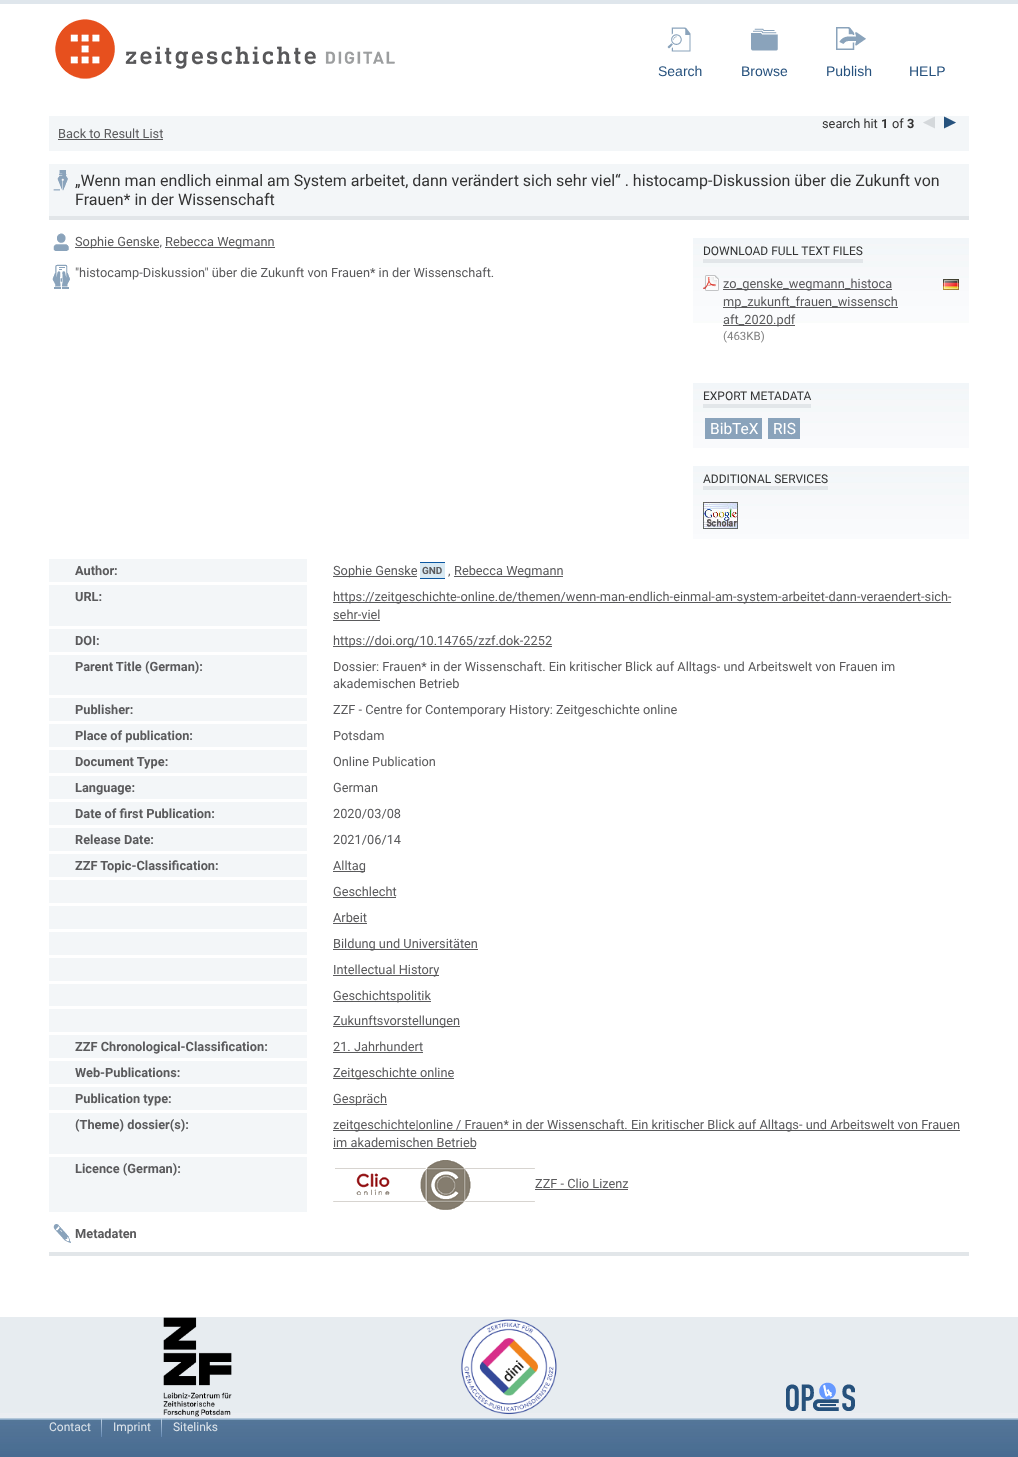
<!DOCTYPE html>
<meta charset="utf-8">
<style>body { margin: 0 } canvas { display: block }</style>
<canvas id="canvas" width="1018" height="1457"></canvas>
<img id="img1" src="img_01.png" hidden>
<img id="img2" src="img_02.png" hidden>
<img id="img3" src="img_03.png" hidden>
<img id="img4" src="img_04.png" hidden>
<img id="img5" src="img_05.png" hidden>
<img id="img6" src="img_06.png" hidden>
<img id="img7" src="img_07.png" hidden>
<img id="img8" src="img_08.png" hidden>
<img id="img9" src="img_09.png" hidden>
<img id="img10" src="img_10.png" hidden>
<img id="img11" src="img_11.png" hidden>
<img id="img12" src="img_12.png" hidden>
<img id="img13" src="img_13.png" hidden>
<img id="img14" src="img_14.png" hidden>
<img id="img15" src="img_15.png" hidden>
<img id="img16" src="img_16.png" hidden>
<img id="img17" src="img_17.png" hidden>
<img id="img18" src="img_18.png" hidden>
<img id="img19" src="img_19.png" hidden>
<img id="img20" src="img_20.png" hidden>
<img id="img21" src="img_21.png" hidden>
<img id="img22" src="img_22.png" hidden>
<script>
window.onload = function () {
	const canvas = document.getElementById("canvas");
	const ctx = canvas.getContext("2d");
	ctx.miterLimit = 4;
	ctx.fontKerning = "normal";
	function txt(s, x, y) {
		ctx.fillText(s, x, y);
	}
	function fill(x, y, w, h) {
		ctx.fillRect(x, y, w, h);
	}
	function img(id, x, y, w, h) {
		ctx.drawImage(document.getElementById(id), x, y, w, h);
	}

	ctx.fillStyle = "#FFFFFF";
	fill(0, 0, 1018, 1457);
	ctx.fillStyle = "#DFE6EC";
	fill(0, 0, 1018, 4);
	img("img1", 55, 19, 340, 60);
	img("img2", 667, 27, 24, 25);
	img("img3", 751, 28, 27, 23);
	img("img4", 836, 27, 30, 23);
	ctx.fillStyle = "#F3F6F8";
	fill(49, 116, 920, 35);
	img("img5", 923, 116, 12, 13);
	img("img6", 944, 116, 12, 13);
	ctx.fillStyle = "#5A5A5C";
	fill(58, 139, 105, 1);
	ctx.fillStyle = "#F3F6F8";
	fill(49, 164, 920, 52);
	img("img7", 53, 170, 15, 21);
	ctx.fillStyle = "#E2E6E9";
	fill(49, 216, 920, 4);
	img("img8", 53, 233, 16, 18);
	ctx.fillStyle = "#5A5A5C";
	fill(75, 247, 84, 1);
	fill(165, 247, 110, 1);
	img("img9", 52, 264, 18, 25);
	img("img10", 693, 238, 276, 85);
	ctx.fillStyle = "#E2E6E9";
	fill(703, 259, 160, 4);
	img("img11", 703, 275, 16, 16);
	ctx.fillStyle = "#5A5A5C";
	fill(723, 289, 169, 1);
	fill(723, 307, 175, 1);
	fill(723, 325, 72, 1);
	img("img12", 943, 279, 16, 11);
	img("img13", 693, 383, 276, 65);
	ctx.fillStyle = "#E2E6E9";
	fill(703, 404, 108, 4);
	ctx.fillStyle = "#8AA3BB";
	fill(705, 418, 57, 21);
	fill(768, 418, 32, 21);
	img("img14", 693, 466, 276, 73);
	ctx.fillStyle = "#E2E6E9";
	fill(703, 486, 125, 4);
	img("img15", 703, 502, 35, 27);
	ctx.fillStyle = "#F3F6F8";
	fill(49, 559, 258, 23);
	ctx.fillStyle = "#5A5A5C";
	fill(333, 576, 84, 1);
	ctx.fillStyle = "#D8E9F3";
	fill(420, 563, 25, 15);
	ctx.fillStyle = "#0B58A2";
	fill(420, 562, 25, 1);
	fill(420, 578, 25, 1);
	ctx.fillStyle = "#5A5A5C";
	fill(454, 576, 109, 1);
	ctx.fillStyle = "#F3F6F8";
	fill(49, 585, 258, 41);
	ctx.fillStyle = "#5A5A5C";
	fill(333, 602, 618, 1);
	fill(333, 620, 47, 1);
	ctx.fillStyle = "#F3F6F8";
	fill(49, 629, 258, 23);
	ctx.fillStyle = "#5A5A5C";
	fill(333, 646, 219, 1);
	ctx.fillStyle = "#F3F6F8";
	fill(49, 655, 258, 40);
	fill(49, 698, 258, 23);
	fill(49, 724, 258, 23);
	fill(49, 750, 258, 23);
	fill(49, 776, 258, 23);
	fill(49, 802, 258, 23);
	fill(49, 828, 258, 23);
	fill(49, 854, 258, 23);
	ctx.fillStyle = "#5A5A5C";
	fill(333, 871, 32, 1);
	ctx.fillStyle = "#F3F6F8";
	fill(49, 880, 258, 23);
	ctx.fillStyle = "#5A5A5C";
	fill(333, 897, 63, 1);
	ctx.fillStyle = "#F3F6F8";
	fill(49, 906, 258, 23);
	ctx.fillStyle = "#5A5A5C";
	fill(333, 923, 34, 1);
	ctx.fillStyle = "#F3F6F8";
	fill(49, 932, 258, 23);
	ctx.fillStyle = "#5A5A5C";
	fill(333, 949, 145, 1);
	ctx.fillStyle = "#F3F6F8";
	fill(49, 958, 258, 23);
	ctx.fillStyle = "#5A5A5C";
	fill(333, 975, 106, 1);
	ctx.fillStyle = "#F3F6F8";
	fill(49, 984, 258, 22);
	ctx.fillStyle = "#5A5A5C";
	fill(333, 1001, 98, 1);
	ctx.fillStyle = "#F3F6F8";
	fill(49, 1009, 258, 23);
	ctx.fillStyle = "#5A5A5C";
	fill(333, 1026, 127, 1);
	ctx.fillStyle = "#F3F6F8";
	fill(49, 1035, 258, 23);
	ctx.fillStyle = "#5A5A5C";
	fill(333, 1052, 90, 1);
	ctx.fillStyle = "#F3F6F8";
	fill(49, 1061, 258, 23);
	ctx.fillStyle = "#5A5A5C";
	fill(333, 1078, 121, 1);
	ctx.fillStyle = "#F3F6F8";
	fill(49, 1087, 258, 23);
	ctx.fillStyle = "#5A5A5C";
	fill(333, 1104, 54, 1);
	ctx.fillStyle = "#F3F6F8";
	fill(49, 1113, 258, 41);
	ctx.fillStyle = "#5A5A5C";
	fill(333, 1130, 627, 1);
	fill(333, 1148, 143, 1);
	ctx.fillStyle = "#F3F6F8";
	fill(49, 1157, 258, 55);
	img("img16", 333, 1160, 202, 50);
	ctx.fillStyle = "#5A5A5C";
	fill(535, 1189, 93, 1);
	img("img17", 53, 1224, 18, 19);
	ctx.fillStyle = "#E2E6E9";
	fill(49, 1252, 920, 4);
	ctx.fillStyle = "#E7ECF0";
	fill(0, 1317, 1018, 96);
	img("img18", 0, 1413, 1018, 44);
	img("img19", 163, 1317, 69, 100);
	img("img20", 461, 1319, 96, 96);
	img("img21", 786, 1382, 69, 29);
	img("img22", 101, 1418, 1, 19);
	img("img22", 161, 1418, 1, 19);
	ctx.font = "14px Liberation Sans";
	ctx.fillStyle = "#26517D";
	txt("Search", 658, 76);
	txt("Browse", 741, 76);
	txt("Publish", 826, 76);
	txt("HELP", 909, 76);
	ctx.font = "12.8px Roboto";
	ctx.fillStyle = "#333333";
	txt("search hit", 822, 128);
	ctx.font = "bold 12.8px Roboto";
	txt("1", 881, 128);
	ctx.font = "12.8px Roboto";
	txt("of", 892, 128);
	ctx.font = "bold 12.8px Roboto";
	txt("3", 907, 128);
	ctx.font = "12.8px Roboto";
	ctx.fillStyle = "#5A5A5C";
	txt("Back to Result List", 58, 138);
	ctx.font = "16px Roboto";
	ctx.fillStyle = "#333333";
	txt("„Wenn man endlich einmal am System arbeitet, dann verändert sich sehr viel“ . histocamp-Diskussion über die Zukunft von", 75, 186);
	txt("Frauen* in der Wissenschaft", 75, 205);
	ctx.font = "12.8px Roboto";
	ctx.fillStyle = "#5A5A5C";
	txt("Sophie Genske,", 75, 246);
	txt("Rebecca Wegmann", 165, 246);
	txt("\"histocamp-Diskussion\" über die Zukunft von Frauen* in der Wissenschaft.", 75, 277);
	ctx.font = "12px Roboto";
	ctx.fillStyle = "#333333";
	txt("DOWNLOAD FULL TEXT FILES", 703, 255);
	ctx.font = "12.8px Roboto";
	ctx.fillStyle = "#5A5A5C";
	txt("zo_genske_wegmann_histoca", 723, 288);
	txt("mp_zukunft_frauen_wissensch", 723, 306);
	txt("aft_2020.pdf", 723, 324);
	ctx.font = "11.5px Roboto";
	ctx.fillStyle = "#808080";
	txt("(463KB)", 723, 340);
	ctx.font = "12px Roboto";
	ctx.fillStyle = "#333333";
	txt("EXPORT METADATA", 703, 400);
	ctx.font = "15.5px Roboto";
	ctx.fillStyle = "#FFFFFF";
	txt("BibTeX", 710, 434);
	txt("RIS", 773, 434);
	ctx.font = "12px Roboto";
	ctx.fillStyle = "#333333";
	txt("ADDITIONAL SERVICES", 703, 483);
	ctx.font = "bold 12.8px Roboto";
	ctx.fillStyle = "#5A5A5C";
	txt("Author:", 75, 575);
	ctx.font = "12.8px Roboto";
	txt("Sophie Genske", 333, 575);
	ctx.font = "bold 10px Roboto";
	txt("GND", 422, 574);
	ctx.font = "12.8px Roboto";
	txt(",", 448, 575);
	txt("Rebecca Wegmann", 454, 575);
	ctx.font = "bold 12.8px Roboto";
	txt("URL:", 75, 601);
	ctx.font = "12.8px Roboto";
	txt("https://zeitgeschichte-online.de/themen/wenn-man-endlich-einmal-am-system-arbeitet-dann-veraendert-sich-", 333, 601);
	txt("sehr-viel", 333, 619);
	ctx.font = "bold 12.8px Roboto";
	txt("DOI:", 75, 645);
	ctx.font = "12.8px Roboto";
	txt("https://doi.org/10.14765/zzf.dok-2252", 333, 645);
	ctx.font = "bold 12.8px Roboto";
	txt("Parent Title (German):", 75, 671);
	ctx.font = "12.8px Roboto";
	txt("Dossier: Frauen* in der Wissenschaft. Ein kritischer Blick auf Alltags- und Arbeitswelt von Frauen im", 333, 671);
	txt("akademischen Betrieb", 333, 688);
	ctx.font = "bold 12.8px Roboto";
	txt("Publisher:", 75, 714);
	ctx.font = "12.8px Roboto";
	txt("ZZF - Centre for Contemporary History: Zeitgeschichte online", 333, 714);
	ctx.font = "bold 12.8px Roboto";
	txt("Place of publication:", 75, 740);
	ctx.font = "12.8px Roboto";
	txt("Potsdam", 333, 740);
	ctx.font = "bold 12.8px Roboto";
	txt("Document Type:", 75, 766);
	ctx.font = "12.8px Roboto";
	txt("Online Publication", 333, 766);
	ctx.font = "bold 12.8px Roboto";
	txt("Language:", 75, 792);
	ctx.font = "12.8px Roboto";
	txt("German", 333, 792);
	ctx.font = "bold 12.8px Roboto";
	txt("Date of first Publication:", 75, 818);
	ctx.font = "12.8px Roboto";
	txt("2020/03/08", 333, 818);
	ctx.font = "bold 12.8px Roboto";
	txt("Release Date:", 75, 844);
	ctx.font = "12.8px Roboto";
	txt("2021/06/14", 333, 844);
	ctx.font = "bold 12.8px Roboto";
	txt("ZZF Topic-Classification:", 75, 870);
	ctx.font = "12.8px Roboto";
	txt("Alltag", 333, 870);
	txt("Geschlecht", 333, 896);
	txt("Arbeit", 333, 922);
	txt("Bildung und Universitäten", 333, 948);
	txt("Intellectual History", 333, 974);
	txt("Geschichtspolitik", 333, 1000);
	txt("Zukunftsvorstellungen", 333, 1025);
	ctx.font = "bold 12.8px Roboto";
	txt("ZZF Chronological-Classification:", 75, 1051);
	ctx.font = "12.8px Roboto";
	txt("21. Jahrhundert", 333, 1051);
	ctx.font = "bold 12.8px Roboto";
	txt("Web-Publications:", 75, 1077);
	ctx.font = "12.8px Roboto";
	txt("Zeitgeschichte online", 333, 1077);
	ctx.font = "bold 12.8px Roboto";
	txt("Publication type:", 75, 1103);
	ctx.font = "12.8px Roboto";
	txt("Gespräch", 333, 1103);
	ctx.font = "bold 12.8px Roboto";
	txt("(Theme) dossier(s):", 75, 1129);
	ctx.font = "12.8px Roboto";
	txt("zeitgeschichte|online / Frauen* in der Wissenschaft. Ein kritischer Blick auf Alltags- und Arbeitswelt von Frauen", 333, 1129);
	txt("im akademischen Betrieb", 333, 1147);
	ctx.font = "bold 12.8px Roboto";
	txt("Licence (German):", 75, 1173);
	ctx.font = "12.8px Roboto";
	txt("ZZF - Clio Lizenz", 535, 1188);
	ctx.font = "bold 12.8px Roboto";
	txt("Metadaten", 75, 1238);
	ctx.font = "12px Roboto";
	ctx.fillStyle = "#DEE5EB";
	txt("Contact", 49, 1431);
	txt("Imprint", 113, 1431);
	txt("Sitelinks", 173, 1431);
};
</script>
